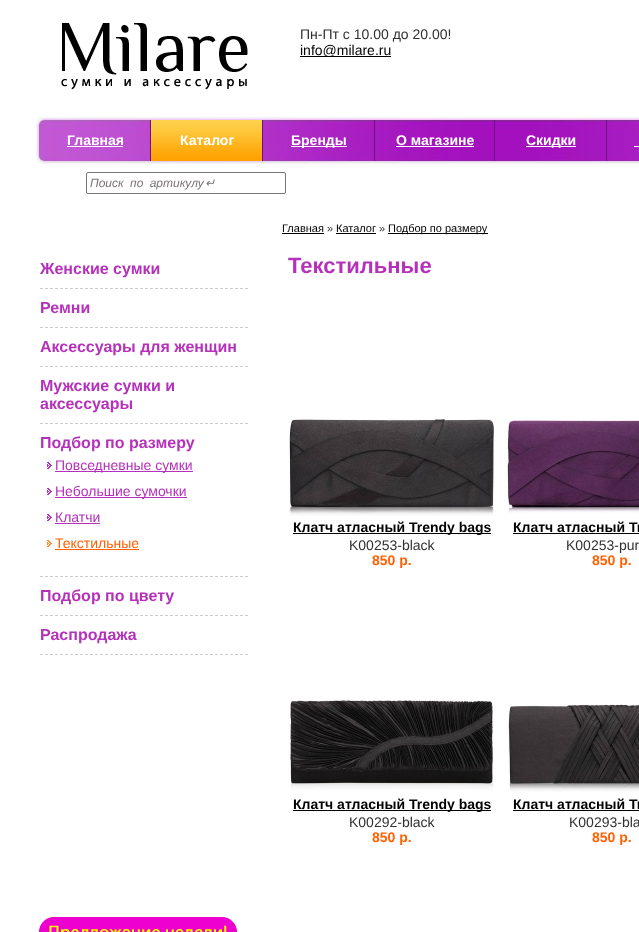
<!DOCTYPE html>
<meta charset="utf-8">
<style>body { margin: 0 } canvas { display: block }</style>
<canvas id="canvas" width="639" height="932"></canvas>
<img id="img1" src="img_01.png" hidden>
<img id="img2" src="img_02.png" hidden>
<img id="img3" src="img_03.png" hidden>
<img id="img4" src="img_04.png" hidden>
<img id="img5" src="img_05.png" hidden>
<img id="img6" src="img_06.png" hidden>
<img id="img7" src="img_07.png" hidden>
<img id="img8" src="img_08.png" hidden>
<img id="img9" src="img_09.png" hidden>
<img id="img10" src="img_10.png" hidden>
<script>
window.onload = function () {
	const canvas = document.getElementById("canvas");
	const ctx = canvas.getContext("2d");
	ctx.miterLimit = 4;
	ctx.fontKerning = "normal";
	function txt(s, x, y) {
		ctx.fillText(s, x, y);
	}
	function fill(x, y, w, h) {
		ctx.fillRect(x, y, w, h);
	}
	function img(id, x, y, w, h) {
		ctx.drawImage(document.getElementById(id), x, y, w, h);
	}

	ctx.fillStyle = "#FFFFFF";
	fill(0, 0, 639, 932);
	img("img1", 61, 23, 187, 67);
	ctx.fillStyle = "#000000";
	fill(300, 56, 91, 1);
	img("img2", 36, 117, 603, 47);
	ctx.fillStyle = "#711086";
	fill(150, 120, 1, 41);
	ctx.fillStyle = "#FFFFFF";
	fill(67, 146, 56, 1);
	ctx.fillStyle = "#711086";
	fill(262, 120, 1, 41);
	img("img3", 151, 120, 111, 41);
	fill(374, 120, 1, 41);
	ctx.fillStyle = "#FFFFFF";
	fill(291, 146, 56, 1);
	ctx.fillStyle = "#711086";
	fill(494, 120, 1, 41);
	ctx.fillStyle = "#FFFFFF";
	fill(396, 146, 78, 1);
	ctx.fillStyle = "#711086";
	fill(606, 120, 1, 41);
	ctx.fillStyle = "#FFFFFF";
	fill(526, 146, 50, 1);
	fill(634, 146, 5, 1);
	ctx.beginPath();
	ctx.roundRect(86.5, 172.5, 199, 21, 1.5);
	ctx.strokeStyle = "#767676";
	ctx.stroke();
	ctx.beginPath();
	ctx.moveTo(40, 288.5);
	ctx.lineTo(248, 288.5);
	ctx.strokeStyle = "#CCCCCC";
	ctx.setLineDash([3, 2]);
	ctx.stroke();
	ctx.beginPath();
	ctx.moveTo(40, 327.5);
	ctx.lineTo(248, 327.5);
	ctx.stroke();
	ctx.beginPath();
	ctx.moveTo(40, 366.5);
	ctx.lineTo(248, 366.5);
	ctx.stroke();
	ctx.beginPath();
	ctx.moveTo(40, 423.5);
	ctx.lineTo(248, 423.5);
	ctx.stroke();
	ctx.beginPath();
	ctx.moveTo(40, 576.5);
	ctx.lineTo(248, 576.5);
	ctx.stroke();
	img("img4", 47, 462, 5, 7);
	ctx.fillStyle = "#B531BA";
	fill(55, 471, 138, 1);
	img("img4", 47, 488, 5, 7);
	fill(55, 497, 132, 1);
	img("img4", 47, 514, 5, 7);
	fill(55, 523, 45, 1);
	img("img5", 47, 540, 5, 7);
	ctx.fillStyle = "#FF6104";
	fill(55, 549, 84, 1);
	ctx.beginPath();
	ctx.moveTo(40, 615.5);
	ctx.lineTo(248, 615.5);
	ctx.stroke();
	ctx.beginPath();
	ctx.moveTo(40, 654.5);
	ctx.lineTo(248, 654.5);
	ctx.stroke();
	img("img6", 39, 917, 198, 15);
	ctx.fillStyle = "#000000";
	fill(282, 233, 42, 1);
	fill(336, 233, 40, 1);
	fill(388, 233, 100, 1);
	img("img7", 289, 419, 205, 97);
	fill(293, 533, 198, 1);
	img("img8", 506, 419, 133, 94);
	fill(513, 533, 126, 1);
	img("img9", 290, 700, 204, 91);
	fill(293, 810, 198, 1);
	img("img10", 508, 704, 131, 88);
	fill(513, 810, 126, 1);
	ctx.font = "14px Liberation Sans";
	ctx.fillStyle = "#303030";
	txt("Пн-Пт с 10.00 до 20.00!", 300, 39);
	ctx.fillStyle = "#000000";
	txt("info@milare.ru", 300, 55);
	ctx.font = "bold 14px Liberation Sans";
	ctx.fillStyle = "#FFFFFF";
	txt("Главная", 67, 145);
	txt("Каталог", 180, 145);
	txt("Бренды", 291, 145);
	txt("О магазине", 396, 145);
	txt("Скидки", 526, 145);
	ctx.wordSpacing = "3px";
	ctx.font = "italic 12px Liberation Sans";
	ctx.fillStyle = "#7B7376";
	txt("Поиск по артикулу", 90, 187);
	ctx.wordSpacing = "0px";
	ctx.font = "italic 12px DejaVu Sans";
	txt("↵", 205, 187);
	ctx.font = "bold 16px Liberation Sans";
	ctx.fillStyle = "#B531BA";
	txt("Женские сумки", 40, 274);
	txt("Ремни", 40, 313);
	txt("Аксессуары для женщин", 40, 352);
	txt("Мужские сумки и", 40, 391);
	txt("аксессуары", 40, 409);
	txt("Подбор по размеру", 40, 448);
	ctx.font = "14px Liberation Sans";
	txt("Повседневные сумки", 55, 470);
	txt("Небольшие сумочки", 55, 496);
	txt("Клатчи", 55, 522);
	ctx.fillStyle = "#FF6104";
	txt("Текстильные", 55, 548);
	ctx.font = "bold 16px Liberation Sans";
	ctx.fillStyle = "#B531BA";
	txt("Подбор по цвету", 40, 601);
	txt("Распродажа", 40, 640);
	ctx.font = "11px Liberation Sans";
	ctx.fillStyle = "#000000";
	txt("Главная", 282, 232);
	ctx.fillStyle = "#303030";
	txt("»", 327, 232);
	ctx.fillStyle = "#000000";
	txt("Каталог", 336, 232);
	ctx.fillStyle = "#303030";
	txt("»", 379, 232);
	ctx.fillStyle = "#000000";
	txt("Подбор по размеру", 388, 232);
	ctx.font = "bold 22px Liberation Sans";
	ctx.fillStyle = "#B531BA";
	txt("Текстильные", 288, 273);
	ctx.font = "bold 14px Liberation Sans";
	ctx.fillStyle = "#000000";
	txt("Клатч атласный Trendy bags", 293, 532);
	ctx.font = "14px Liberation Sans";
	ctx.fillStyle = "#303030";
	txt("K00253-black", 349, 550);
	ctx.font = "bold 14px Liberation Sans";
	ctx.fillStyle = "#FF6104";
	txt("850 р.", 372, 565);
	ctx.fillStyle = "#000000";
	txt("Клатч атласный Tr", 513, 532);
	ctx.font = "14px Liberation Sans";
	ctx.fillStyle = "#303030";
	txt("K00253-pur", 566, 550);
	ctx.font = "bold 14px Liberation Sans";
	ctx.fillStyle = "#FF6104";
	txt("850 р.", 592, 565);
	ctx.fillStyle = "#000000";
	txt("Клатч атласный Trendy bags", 293, 809);
	ctx.font = "14px Liberation Sans";
	ctx.fillStyle = "#303030";
	txt("K00292-black", 349, 827);
	ctx.font = "bold 14px Liberation Sans";
	ctx.fillStyle = "#FF6104";
	txt("850 р.", 372, 842);
	ctx.fillStyle = "#000000";
	txt("Клатч атласный Tr", 513, 809);
	ctx.font = "14px Liberation Sans";
	ctx.fillStyle = "#303030";
	txt("K00293-bla", 569, 827);
	ctx.font = "bold 14px Liberation Sans";
	ctx.fillStyle = "#FF6104";
	txt("850 р.", 592, 842);
};
</script>
